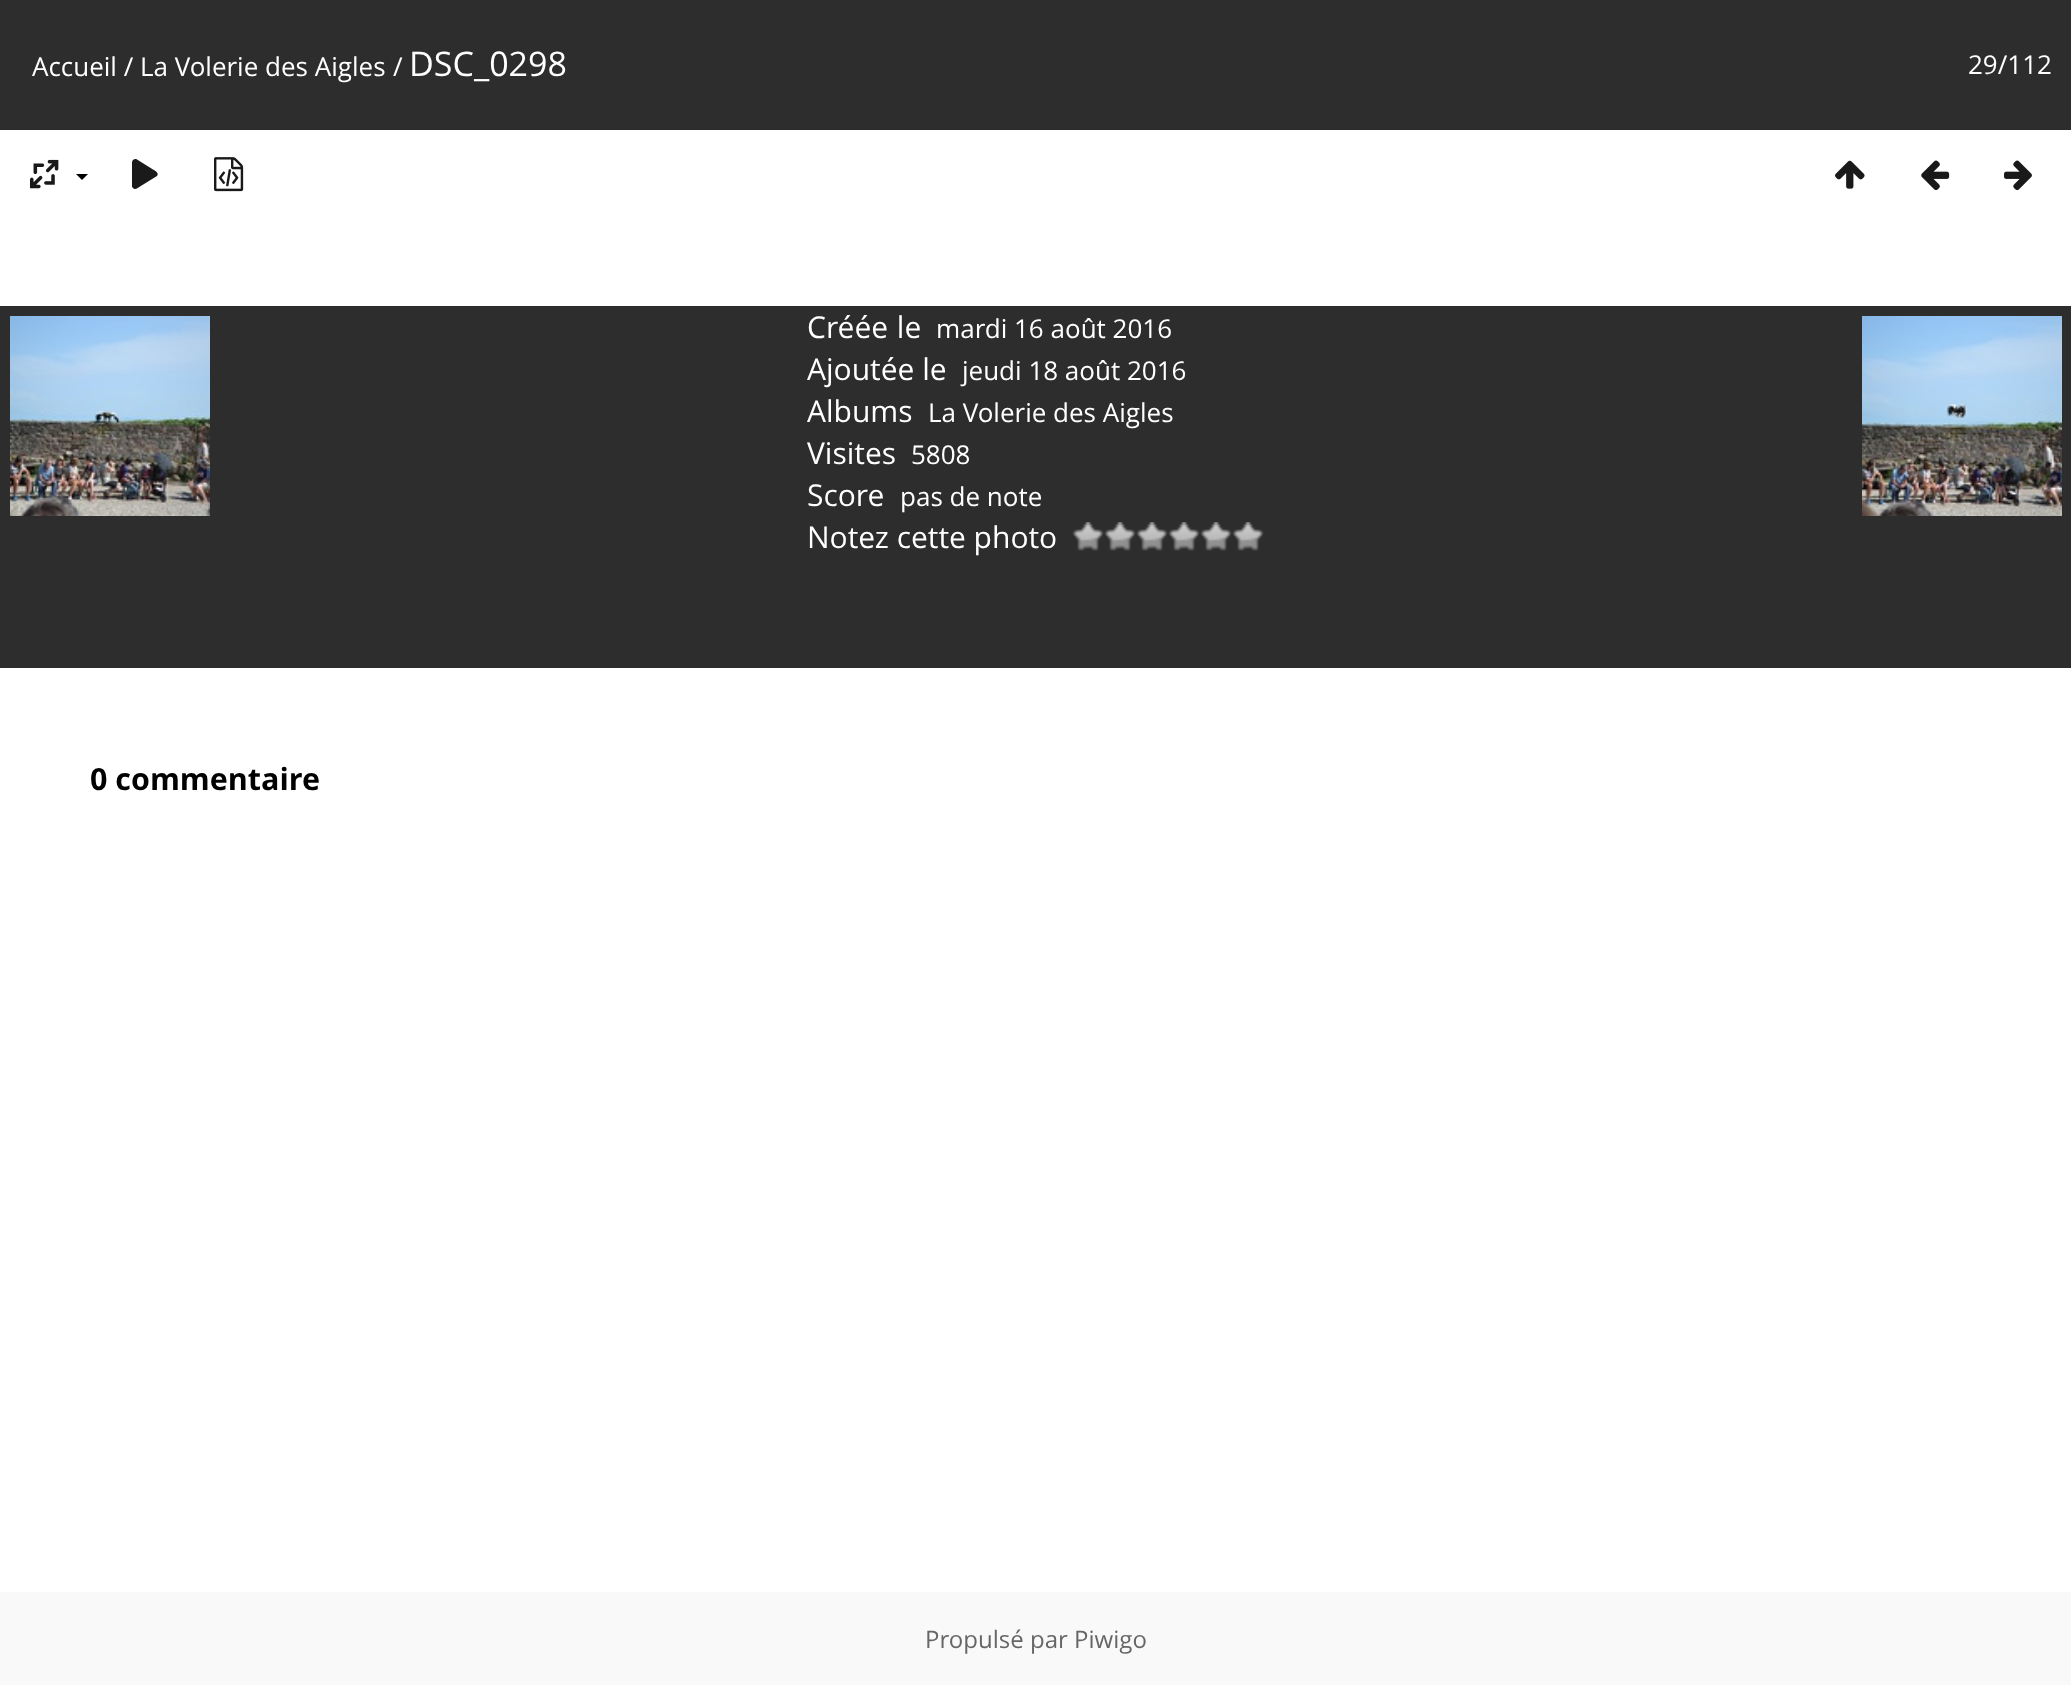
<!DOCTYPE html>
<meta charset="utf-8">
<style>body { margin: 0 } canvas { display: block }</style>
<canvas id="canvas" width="2071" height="1685"></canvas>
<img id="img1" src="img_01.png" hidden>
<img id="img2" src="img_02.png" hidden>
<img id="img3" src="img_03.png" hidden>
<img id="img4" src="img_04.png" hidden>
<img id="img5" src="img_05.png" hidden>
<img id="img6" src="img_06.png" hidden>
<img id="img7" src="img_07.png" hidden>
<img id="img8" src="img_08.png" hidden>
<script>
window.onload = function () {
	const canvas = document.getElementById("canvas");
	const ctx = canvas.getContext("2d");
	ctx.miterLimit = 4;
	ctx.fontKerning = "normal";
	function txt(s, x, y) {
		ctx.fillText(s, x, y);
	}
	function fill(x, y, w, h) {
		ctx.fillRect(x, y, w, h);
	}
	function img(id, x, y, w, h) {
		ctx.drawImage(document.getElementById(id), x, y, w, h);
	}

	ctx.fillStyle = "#FFFFFF";
	fill(0, 0, 2071, 1685);
	ctx.fillStyle = "#2D2D2D";
	fill(0, 0, 2071, 130);
	img("img1", 30, 159, 29, 30);
	ctx.fillStyle = "#000000";
	ctx.beginPath();
	ctx.moveTo(76, 174);
	ctx.lineTo(88, 174);
	ctx.lineTo(82, 180);
	ctx.closePath();
	ctx.fill();
	ctx.fillStyle = "#1A1A1A";
	ctx.beginPath();
	ctx.moveTo(137, 159.5);
	ctx.bezierCurveTo(135, 158.5, 132.5, 159.5, 132, 162);
	ctx.lineTo(132, 186.5);
	ctx.bezierCurveTo(133.5, 191, 138, 188, 140, 186.5);
	ctx.lineTo(157, 176);
	ctx.bezierCurveTo(159.5, 173, 155, 170.5, 153, 169.5);
	ctx.closePath();
	ctx.fill();
	img("img2", 214, 157, 30, 35);
	img("img3", 1835, 160, 30, 29);
	img("img4", 1921, 160, 29, 30);
	img("img5", 2004, 160, 28, 31);
	ctx.fillStyle = "#2D2D2D";
	fill(0, 306, 2071, 362);
	img("img6", 1072, 522, 32, 29);
	img("img6", 1104, 522, 32, 29);
	img("img6", 1136, 522, 32, 29);
	img("img6", 1168, 522, 32, 29);
	img("img6", 1200, 522, 32, 29);
	img("img6", 1232, 522, 32, 29);
	img("img7", 10, 316, 200, 200);
	img("img8", 1862, 316, 200, 200);
	ctx.fillStyle = "#F9F9F9";
	fill(0, 1592, 2071, 93);
	ctx.font = "26px Open Sans";
	ctx.fillStyle = "#FFFFFF";
	txt("Accueil / La Volerie des Aigles", 32, 76);
	txt("/", 393, 76);
	ctx.font = "34px Open Sans";
	txt("DSC_0298", 409, 76);
	ctx.font = "26px Open Sans";
	txt("29/112", 1968, 74);
	ctx.wordSpacing = "1px";
	ctx.font = "30px Open Sans";
	txt("Créée le", 807, 338);
	ctx.wordSpacing = "0px";
	ctx.font = "26px Open Sans";
	txt("mardi 16 août 2016", 936, 338);
	ctx.font = "30px Open Sans";
	txt("Ajoutée le", 807, 380);
	ctx.font = "26px Open Sans";
	txt("jeudi 18 août 2016", 962, 380);
	ctx.font = "30px Open Sans";
	txt("Albums", 807, 422);
	ctx.font = "26px Open Sans";
	txt("La Volerie des Aigles", 928, 422);
	ctx.font = "30px Open Sans";
	txt("Visites", 807, 464);
	ctx.font = "26px Open Sans";
	txt("5808", 911, 464);
	ctx.font = "30px Open Sans";
	txt("Score", 807, 506);
	ctx.font = "26px Open Sans";
	txt("pas de note", 900, 506);
	ctx.font = "30px Open Sans";
	txt("Notez cette photo", 807, 548);
	ctx.font = "bold 30.5px Open Sans";
	ctx.fillStyle = "#000000";
	txt("0 commentaire", 90, 790);
	ctx.font = "24px Open Sans";
	ctx.fillStyle = "#666666";
	txt("Propulsé par", 925, 1648);
	txt("Piwigo", 1074, 1648);
};
</script>
